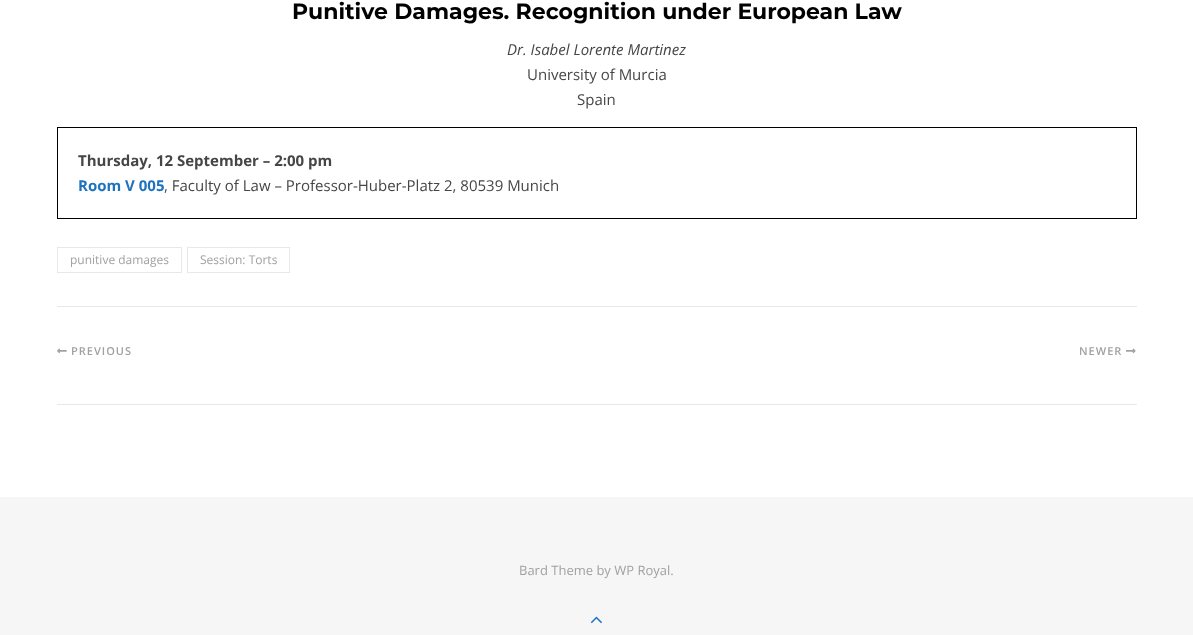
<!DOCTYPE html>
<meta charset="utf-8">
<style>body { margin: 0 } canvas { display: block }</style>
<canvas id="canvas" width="1193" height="635"></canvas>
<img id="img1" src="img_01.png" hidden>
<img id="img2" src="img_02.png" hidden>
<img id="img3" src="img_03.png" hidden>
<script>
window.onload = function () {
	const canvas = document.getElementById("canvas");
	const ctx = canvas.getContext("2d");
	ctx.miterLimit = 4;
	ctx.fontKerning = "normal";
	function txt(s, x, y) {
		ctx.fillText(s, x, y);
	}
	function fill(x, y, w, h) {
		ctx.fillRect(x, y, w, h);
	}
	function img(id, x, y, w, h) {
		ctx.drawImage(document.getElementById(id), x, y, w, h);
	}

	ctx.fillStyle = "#FFFFFF";
	fill(0, 0, 1193, 635);
	ctx.strokeStyle = "#000000";
	ctx.strokeRect(57.5, 127.5, 1079, 91);
	ctx.fillStyle = "#E8E8E8";
	fill(57, 306, 1080, 1);
	ctx.strokeStyle = "#E8E8E8";
	ctx.strokeRect(57.5, 247.5, 124, 25);
	ctx.strokeRect(187.5, 247.5, 102, 25);
	fill(57, 404, 1080, 1);
	img("img1", 57, 348, 10, 6);
	img("img2", 1126, 348, 10, 6);
	ctx.fillStyle = "#F6F6F6";
	fill(0, 497, 1193, 138);
	img("img3", 590, 616, 12, 8);
	ctx.font = "bold 22px Montserrat";
	ctx.fillStyle = "#000000";
	txt("Punitive Damages. Recognition under European Law", 292, 19);
	ctx.font = "italic 15px Open Sans";
	ctx.fillStyle = "#464646";
	txt("Dr. Isabel Lorente Martinez", 507, 55);
	ctx.font = "15px Open Sans";
	txt("University of Murcia", 527, 80);
	txt("Spain", 577, 105);
	ctx.font = "bold 15px Open Sans";
	txt("Thursday, 12 September – 2:00 pm", 78, 166);
	ctx.fillStyle = "#1E73BE";
	txt("Room V 005", 78, 191);
	ctx.font = "15px Open Sans";
	ctx.fillStyle = "#464646";
	txt(", Faculty of Law – Professor-Huber-Platz 2, 80539 Munich", 164, 191);
	ctx.font = "12px Open Sans";
	ctx.fillStyle = "#A1A1A1";
	txt("punitive damages", 70, 264);
	txt("Session: Torts", 200, 264);
	ctx.letterSpacing = "1px";
	ctx.font = "600 11px Open Sans";
	txt("PREVIOUS", 71, 355);
	txt("NEWER", 1079, 355);
	ctx.letterSpacing = "0px";
	ctx.font = "13px Open Sans";
	txt("Bard Theme by WP Royal.", 519, 575);
};
</script>
